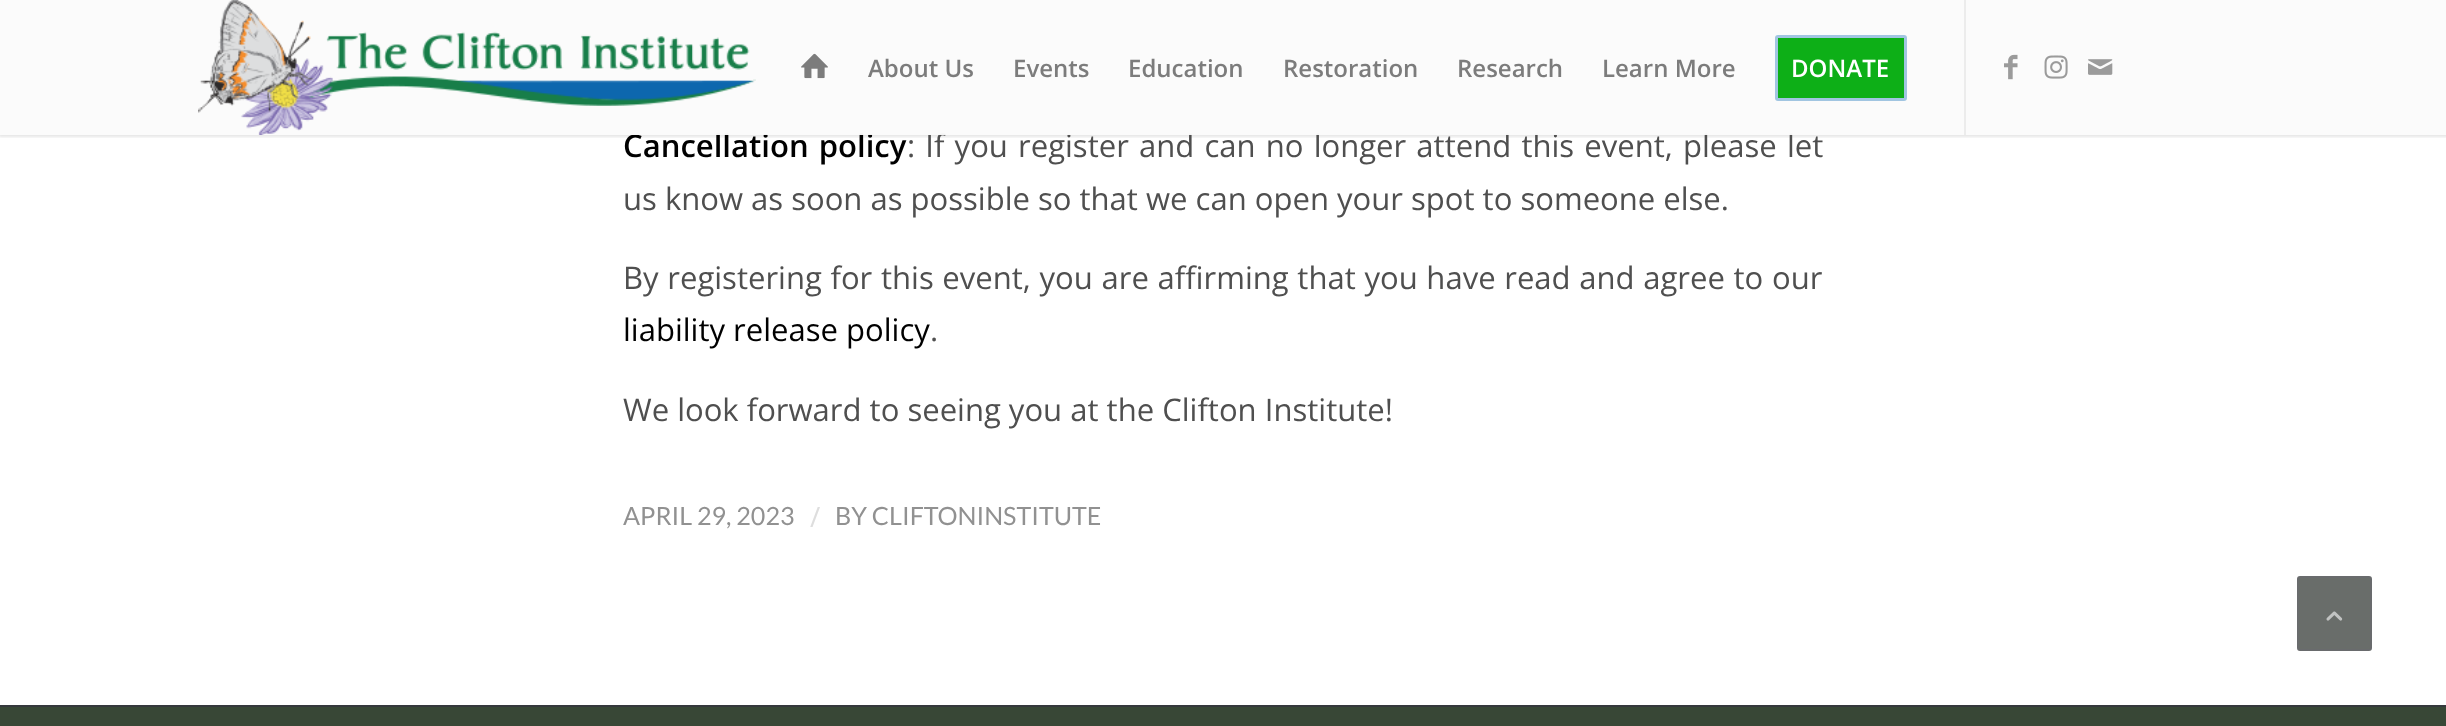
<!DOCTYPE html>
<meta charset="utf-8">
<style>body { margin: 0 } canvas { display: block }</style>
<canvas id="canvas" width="2446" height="726"></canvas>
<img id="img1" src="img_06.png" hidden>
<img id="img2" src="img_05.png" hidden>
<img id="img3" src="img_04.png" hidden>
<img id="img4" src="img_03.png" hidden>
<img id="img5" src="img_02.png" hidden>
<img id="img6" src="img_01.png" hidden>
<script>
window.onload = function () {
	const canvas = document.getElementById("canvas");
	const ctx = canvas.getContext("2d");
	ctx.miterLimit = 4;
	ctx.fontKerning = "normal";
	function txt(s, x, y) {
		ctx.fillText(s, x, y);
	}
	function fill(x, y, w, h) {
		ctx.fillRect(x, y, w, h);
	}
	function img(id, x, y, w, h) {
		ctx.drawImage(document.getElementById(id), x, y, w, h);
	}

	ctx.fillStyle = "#FFFFFF";
	fill(0, 0, 2446, 726);
	ctx.save();
	ctx.beginPath();
	ctx.rect(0, 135, 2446, 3);
	ctx.clip();
	ctx.fillStyle = "rgba(0, 0, 0, 0.1)";
	ctx.filter = "blur(1.5px)";
	ctx.beginPath();
	ctx.rect(-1, -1, 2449, 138);
	ctx.fill();
	ctx.filter = "none";
	ctx.restore();
	ctx.fillStyle = "#384736";
	fill(0, 707, 2446, 19);
	ctx.fillStyle = "#35383C";
	fill(0, 705, 2446, 2);
	ctx.fillStyle = "#696D6A";
	ctx.beginPath();
	ctx.roundRect(2298, 577, 73, 73, 2);
	ctx.fill();
	ctx.strokeStyle = "#696B6D";
	ctx.lineWidth = 2;
	ctx.stroke();
	img("img1", 2326, 611, 17, 10);
	ctx.wordSpacing = "2px";
	ctx.font = "600 31.05px Open Sans";
	ctx.fillStyle = "#000000";
	txt("Cancellation policy", 623, 157);
	ctx.wordSpacing = "2.1px";
	ctx.font = "31.05px Open Sans";
	ctx.fillStyle = "#4F4F4F";
	txt(": If you register and can no longer attend this event, please let", 907, 157);
	ctx.fillStyle = "rgba(0, 0, 0, 0.31)";
	fill(0, 0, 2446, 135);
	ctx.fillStyle = "rgba(255, 255, 255, 0.95)";
	fill(0, 0, 2446, 135);
	img("img2", 2088, 59, 25, 16);
	img("img3", 2044, 55, 24, 24);
	img("img4", 2004, 54, 14, 26);
	ctx.fillStyle = "#0DAF17";
	ctx.beginPath();
	ctx.roundRect(1776.5, 36.5, 129, 63, 1.5);
	ctx.fill();
	ctx.strokeStyle = "#A1C5E1";
	ctx.lineWidth = 3;
	ctx.stroke();
	ctx.wordSpacing = "0px";
	ctx.font = "600 24px Open Sans";
	ctx.fillStyle = "#FFFFFF";
	txt("DONATE", 1791, 77);
	ctx.fillStyle = "#7C7C7C";
	txt("Learn More", 1602, 77);
	txt("Research", 1457, 77);
	txt("Restoration", 1283, 77);
	txt("Education", 1128, 77);
	txt("Events", 1013, 77);
	txt("About Us", 868, 77);
	img("img5", 801, 53, 27, 26);
	ctx.fillStyle = "#ECECEC";
	fill(1964, 0, 2, 135);
	img("img6", 198, 0, 558, 135);
	ctx.font = "31.05px Open Sans";
	ctx.fillStyle = "#4F4F4F";
	txt("us know as soon as possible so that we can open your spot to someone else.", 623, 210);
	ctx.wordSpacing = "0.6px";
	txt("By registering for this event, you are affirming that you have read and agree to our", 623, 289);
	ctx.wordSpacing = "0px";
	ctx.fillStyle = "#000000";
	txt("liability release policy", 623, 341);
	ctx.fillStyle = "#4F4F4F";
	txt(".", 930, 341);
	txt("We look forward to seeing you at the Clifton Institute!", 623, 421);
	ctx.font = "25.1px Lato";
	ctx.fillStyle = "#919191";
	txt("APRIL 29, 2023", 623, 525);
	ctx.font = "28px Open Sans";
	ctx.fillStyle = "#DEDEDE";
	txt("/", 810, 527);
	ctx.font = "25.1px Lato";
	ctx.fillStyle = "#919191";
	txt("BY CLIFTONINSTITUTE", 835, 525);
};
</script>
